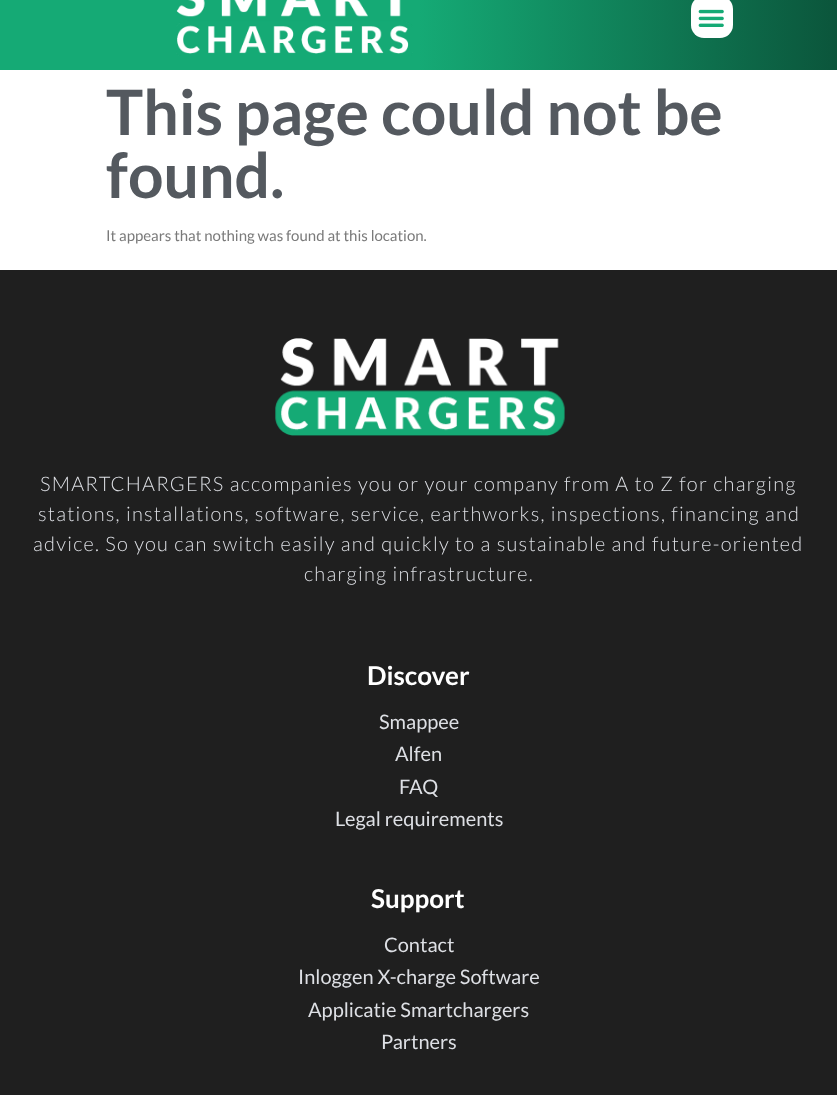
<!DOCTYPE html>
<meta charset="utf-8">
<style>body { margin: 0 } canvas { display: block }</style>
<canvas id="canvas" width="837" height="1095"></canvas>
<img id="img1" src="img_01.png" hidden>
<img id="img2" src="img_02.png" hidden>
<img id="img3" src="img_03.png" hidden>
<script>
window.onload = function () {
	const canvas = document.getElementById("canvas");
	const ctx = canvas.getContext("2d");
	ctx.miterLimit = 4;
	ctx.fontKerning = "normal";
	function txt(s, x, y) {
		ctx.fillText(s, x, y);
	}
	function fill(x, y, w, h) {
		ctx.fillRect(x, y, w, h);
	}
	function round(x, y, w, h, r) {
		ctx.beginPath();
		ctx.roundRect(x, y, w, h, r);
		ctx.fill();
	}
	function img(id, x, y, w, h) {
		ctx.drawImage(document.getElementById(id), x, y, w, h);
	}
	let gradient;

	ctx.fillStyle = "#FFFFFF";
	fill(0, 0, 837, 1095);
	gradient = ctx.createLinearGradient(0, 17, 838, 17);
	gradient.addColorStop(0.5, "#15AA75");
	gradient.addColorStop(1, "#0B553B");
	ctx.fillStyle = gradient;
	fill(0, 0, 837, 70);
	img("img1", 176, 0, 237, 56);
	ctx.fillStyle = "#FFFFFF";
	round(691, -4, 42, 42, 13);
	img("img2", 698, 9, 26, 18);
	ctx.fillStyle = "#1F1F1F";
	fill(0, 270, 837, 825);
	img("img3", 275, 338, 290, 98);
	ctx.font = "bold 62.5px Lato";
	ctx.fillStyle = "#54595F";
	txt("This page could not be", 106, 135);
	txt("found.", 106, 198);
	ctx.font = "15px Lato";
	ctx.fillStyle = "#7A7A7A";
	txt("It appears that nothing was found at this location.", 106, 241);
	ctx.letterSpacing = "1.25px";
	ctx.font = "300 20px Lato";
	ctx.fillStyle = "#DDDFE4";
	txt("SMARTCHARGERS accompanies you or your company from A to Z for charging", 40, 491);
	txt("stations, installations, software, service, earthworks, inspections, financing and", 38, 521);
	txt("advice. So you can switch easily and quickly to a sustainable and future-oriented", 33, 551);
	txt("charging infrastructure.", 304, 581);
	ctx.letterSpacing = "0px";
	ctx.font = "bold 26px Lato";
	ctx.fillStyle = "#FFFFFF";
	txt("Discover", 367, 685);
	ctx.font = "20px Lato";
	ctx.fillStyle = "#DDDFE4";
	txt("Smappee", 379, 729);
	txt("Alfen", 395, 761);
	txt("FAQ", 399, 794);
	txt("Legal requirements", 335, 826);
	ctx.font = "bold 26px Lato";
	ctx.fillStyle = "#FFFFFF";
	txt("Support", 371, 908);
	ctx.font = "20px Lato";
	ctx.fillStyle = "#DDDFE4";
	txt("Contact", 384, 952);
	txt("Inloggen X-charge Software", 298, 984);
	txt("Applicatie Smartchargers", 308, 1017);
	txt("Partners", 381, 1049);
};
</script>
